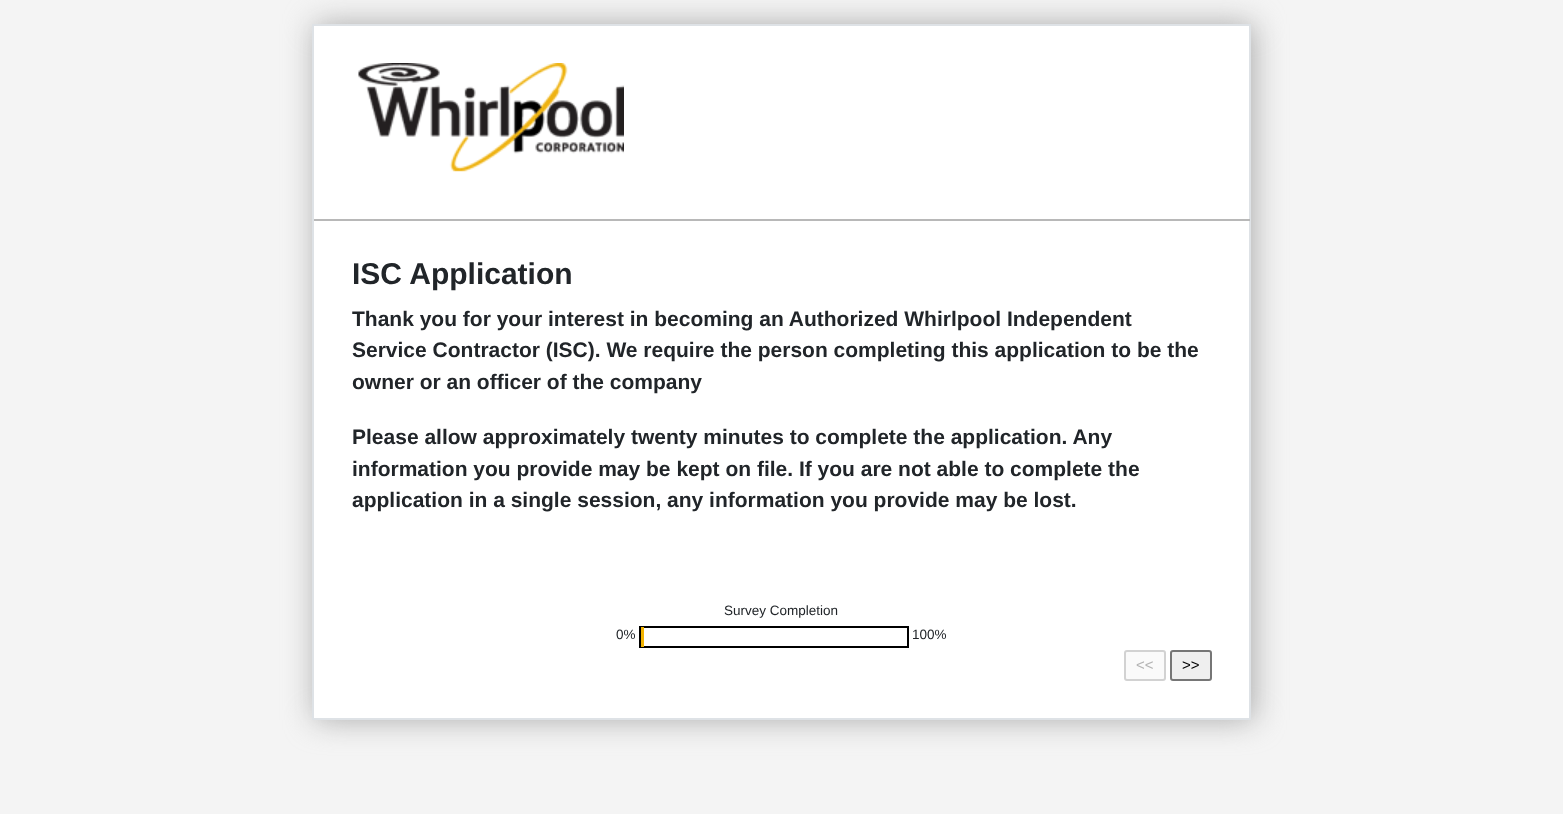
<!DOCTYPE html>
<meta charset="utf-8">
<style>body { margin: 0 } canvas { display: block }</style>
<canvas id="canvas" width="1563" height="814"></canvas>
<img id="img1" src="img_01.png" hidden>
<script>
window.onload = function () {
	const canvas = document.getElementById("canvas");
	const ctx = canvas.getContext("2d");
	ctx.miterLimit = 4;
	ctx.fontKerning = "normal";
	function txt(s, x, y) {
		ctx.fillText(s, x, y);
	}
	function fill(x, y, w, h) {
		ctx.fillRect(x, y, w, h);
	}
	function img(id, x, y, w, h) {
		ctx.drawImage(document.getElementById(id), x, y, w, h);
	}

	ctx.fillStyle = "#F4F4F4";
	fill(0, 0, 1563, 814);
	ctx.fillStyle = "#ABABAB";
	ctx.filter = "blur(15px)";
	ctx.beginPath();
	ctx.rect(315, 24, 939, 696);
	ctx.fill();
	ctx.filter = "none";
	ctx.fillStyle = "#FFFFFF";
	ctx.beginPath();
	ctx.rect(313, 25, 937, 694);
	ctx.fill();
	ctx.strokeStyle = "#DEE2E6";
	ctx.lineWidth = 2;
	ctx.stroke();
	img("img1", 358, 63, 266, 109);
	ctx.fillStyle = "#B8B8B8";
	fill(314, 219, 936, 2);
	ctx.strokeStyle = "#000000";
	ctx.strokeRect(640, 627, 268, 20);
	ctx.fillStyle = "#F2B300";
	fill(641, 627, 3, 20);
	ctx.fillStyle = "#FAFAFA";
	ctx.beginPath();
	ctx.roundRect(1125, 651, 40, 29, 2);
	ctx.fill();
	ctx.strokeStyle = "#D2D2D2";
	ctx.stroke();
	ctx.fillStyle = "#EFEFEF";
	ctx.beginPath();
	ctx.roundRect(1171, 651, 40, 29, 2);
	ctx.fill();
	ctx.strokeStyle = "#767676";
	ctx.stroke();
	ctx.font = "bold 30px Liberation Sans";
	ctx.fillStyle = "#212529";
	txt("ISC Application", 352, 284);
	ctx.font = "bold 21px Liberation Sans";
	txt("Thank you for your interest in becoming an Authorized Whirlpool Independent", 352, 326);
	txt("Service Contractor (ISC). We require the person completing this application to be the", 352, 357);
	txt("owner or an officer of the company", 352, 389);
	txt("Please allow approximately twenty minutes to complete the application. Any", 352, 444);
	txt("information you provide may be kept on file. If you are not able to complete the", 352, 476);
	txt("application in a single session, any information you provide may be lost.", 352, 507);
	ctx.font = "13.5px Liberation Sans";
	txt("Survey Completion", 724, 615);
	txt("0%", 616, 639);
	txt("100%", 912, 639);
	ctx.font = "15px Liberation Sans";
	ctx.fillStyle = "#B4B4B4";
	txt("<<", 1136, 670);
	ctx.fillStyle = "#000000";
	txt(">>", 1182, 670);
};
</script>
